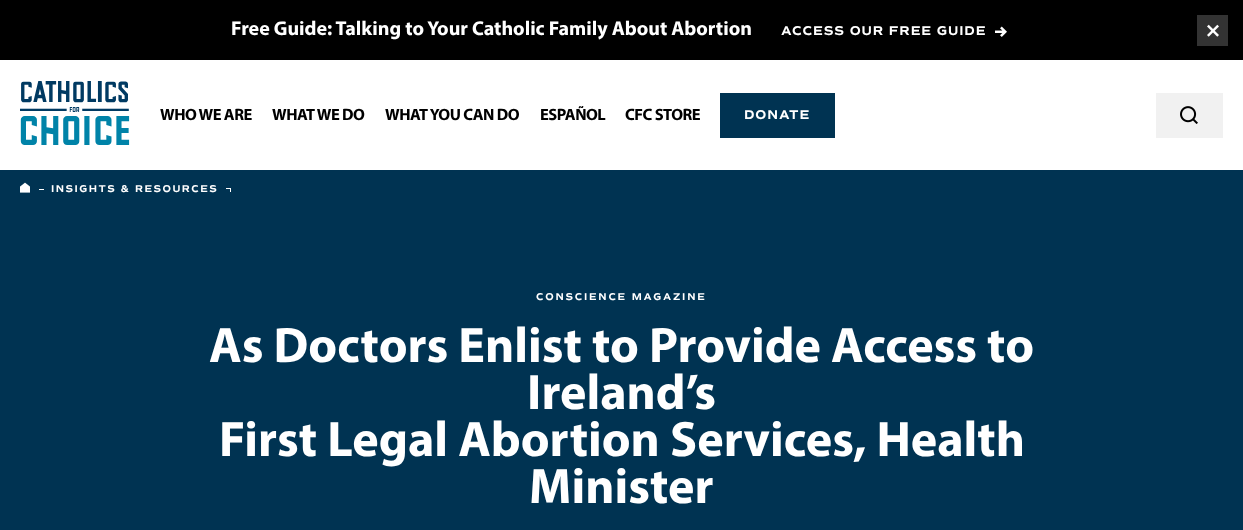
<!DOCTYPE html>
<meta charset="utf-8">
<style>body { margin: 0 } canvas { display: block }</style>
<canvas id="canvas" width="1243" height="530"></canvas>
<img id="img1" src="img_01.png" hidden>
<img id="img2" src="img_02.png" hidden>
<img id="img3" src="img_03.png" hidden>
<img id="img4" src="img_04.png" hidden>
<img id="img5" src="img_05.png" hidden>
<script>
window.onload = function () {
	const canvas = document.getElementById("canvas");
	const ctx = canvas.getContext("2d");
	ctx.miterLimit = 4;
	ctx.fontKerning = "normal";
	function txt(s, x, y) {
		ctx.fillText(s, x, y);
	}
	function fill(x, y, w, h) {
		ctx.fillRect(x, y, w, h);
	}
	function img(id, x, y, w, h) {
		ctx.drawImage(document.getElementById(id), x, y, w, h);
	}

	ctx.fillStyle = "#FFFFFF";
	fill(0, 0, 1243, 530);
	ctx.fillStyle = "#000000";
	fill(0, 0, 1243, 60);
	img("img1", 995, 26, 12, 11);
	ctx.fillStyle = "#333333";
	fill(1197, 15, 31, 31);
	img("img2", 1207, 24, 12, 13);
	img("img3", 20, 81, 110, 64);
	ctx.fillStyle = "#003352";
	fill(720, 93, 115, 45);
	ctx.fillStyle = "#F1F1F1";
	fill(1156, 93, 67, 45);
	img("img4", 1180, 106, 18, 18);
	ctx.fillStyle = "#003352";
	fill(0, 170, 1243, 360);
	img("img5", 20, 182, 10, 11);
	ctx.fillStyle = "#FFFFFF";
	fill(39, 189, 5, 1);
	fill(226, 188, 5, 1);
	fill(230, 188, 1, 4);
	ctx.font = "bold 20px Myriad";
	txt("Free Guide: Talking to Your Catholic Family About Abortion", 231, 35);
	ctx.letterSpacing = "0.9px";
	ctx.font = "bold 13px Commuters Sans";
	txt("ACCESS OUR FREE GUIDE", 781, 35);
	ctx.letterSpacing = "-0.5px";
	ctx.font = "bold 16.5px Myriad";
	ctx.fillStyle = "#000000";
	txt("WHO WE ARE", 160, 120);
	txt("WHAT WE DO", 272, 120);
	txt("WHAT YOU CAN DO", 385, 120);
	txt("ESPAÑOL", 540, 120);
	txt("CFC STORE", 625, 120);
	ctx.letterSpacing = "0.9px";
	ctx.font = "bold 13px Commuters Sans";
	ctx.fillStyle = "#FFFFFF";
	txt("DONATE", 744, 119);
	ctx.letterSpacing = "1.5px";
	ctx.font = "bold 10px Commuters Sans";
	txt("INSIGHTS & RESOURCES", 51, 192);
	ctx.letterSpacing = "1.8px";
	txt("CONSCIENCE MAGAZINE", 536, 300);
	ctx.letterSpacing = "0px";
	ctx.font = "bold 50px Myriad";
	txt("As Doctors Enlist to Provide Access to", 209, 362);
	txt("Ireland’s", 527, 409);
	txt("First Legal Abortion Services, Health", 219, 456);
	txt("Minister", 529, 503);
};
</script>
